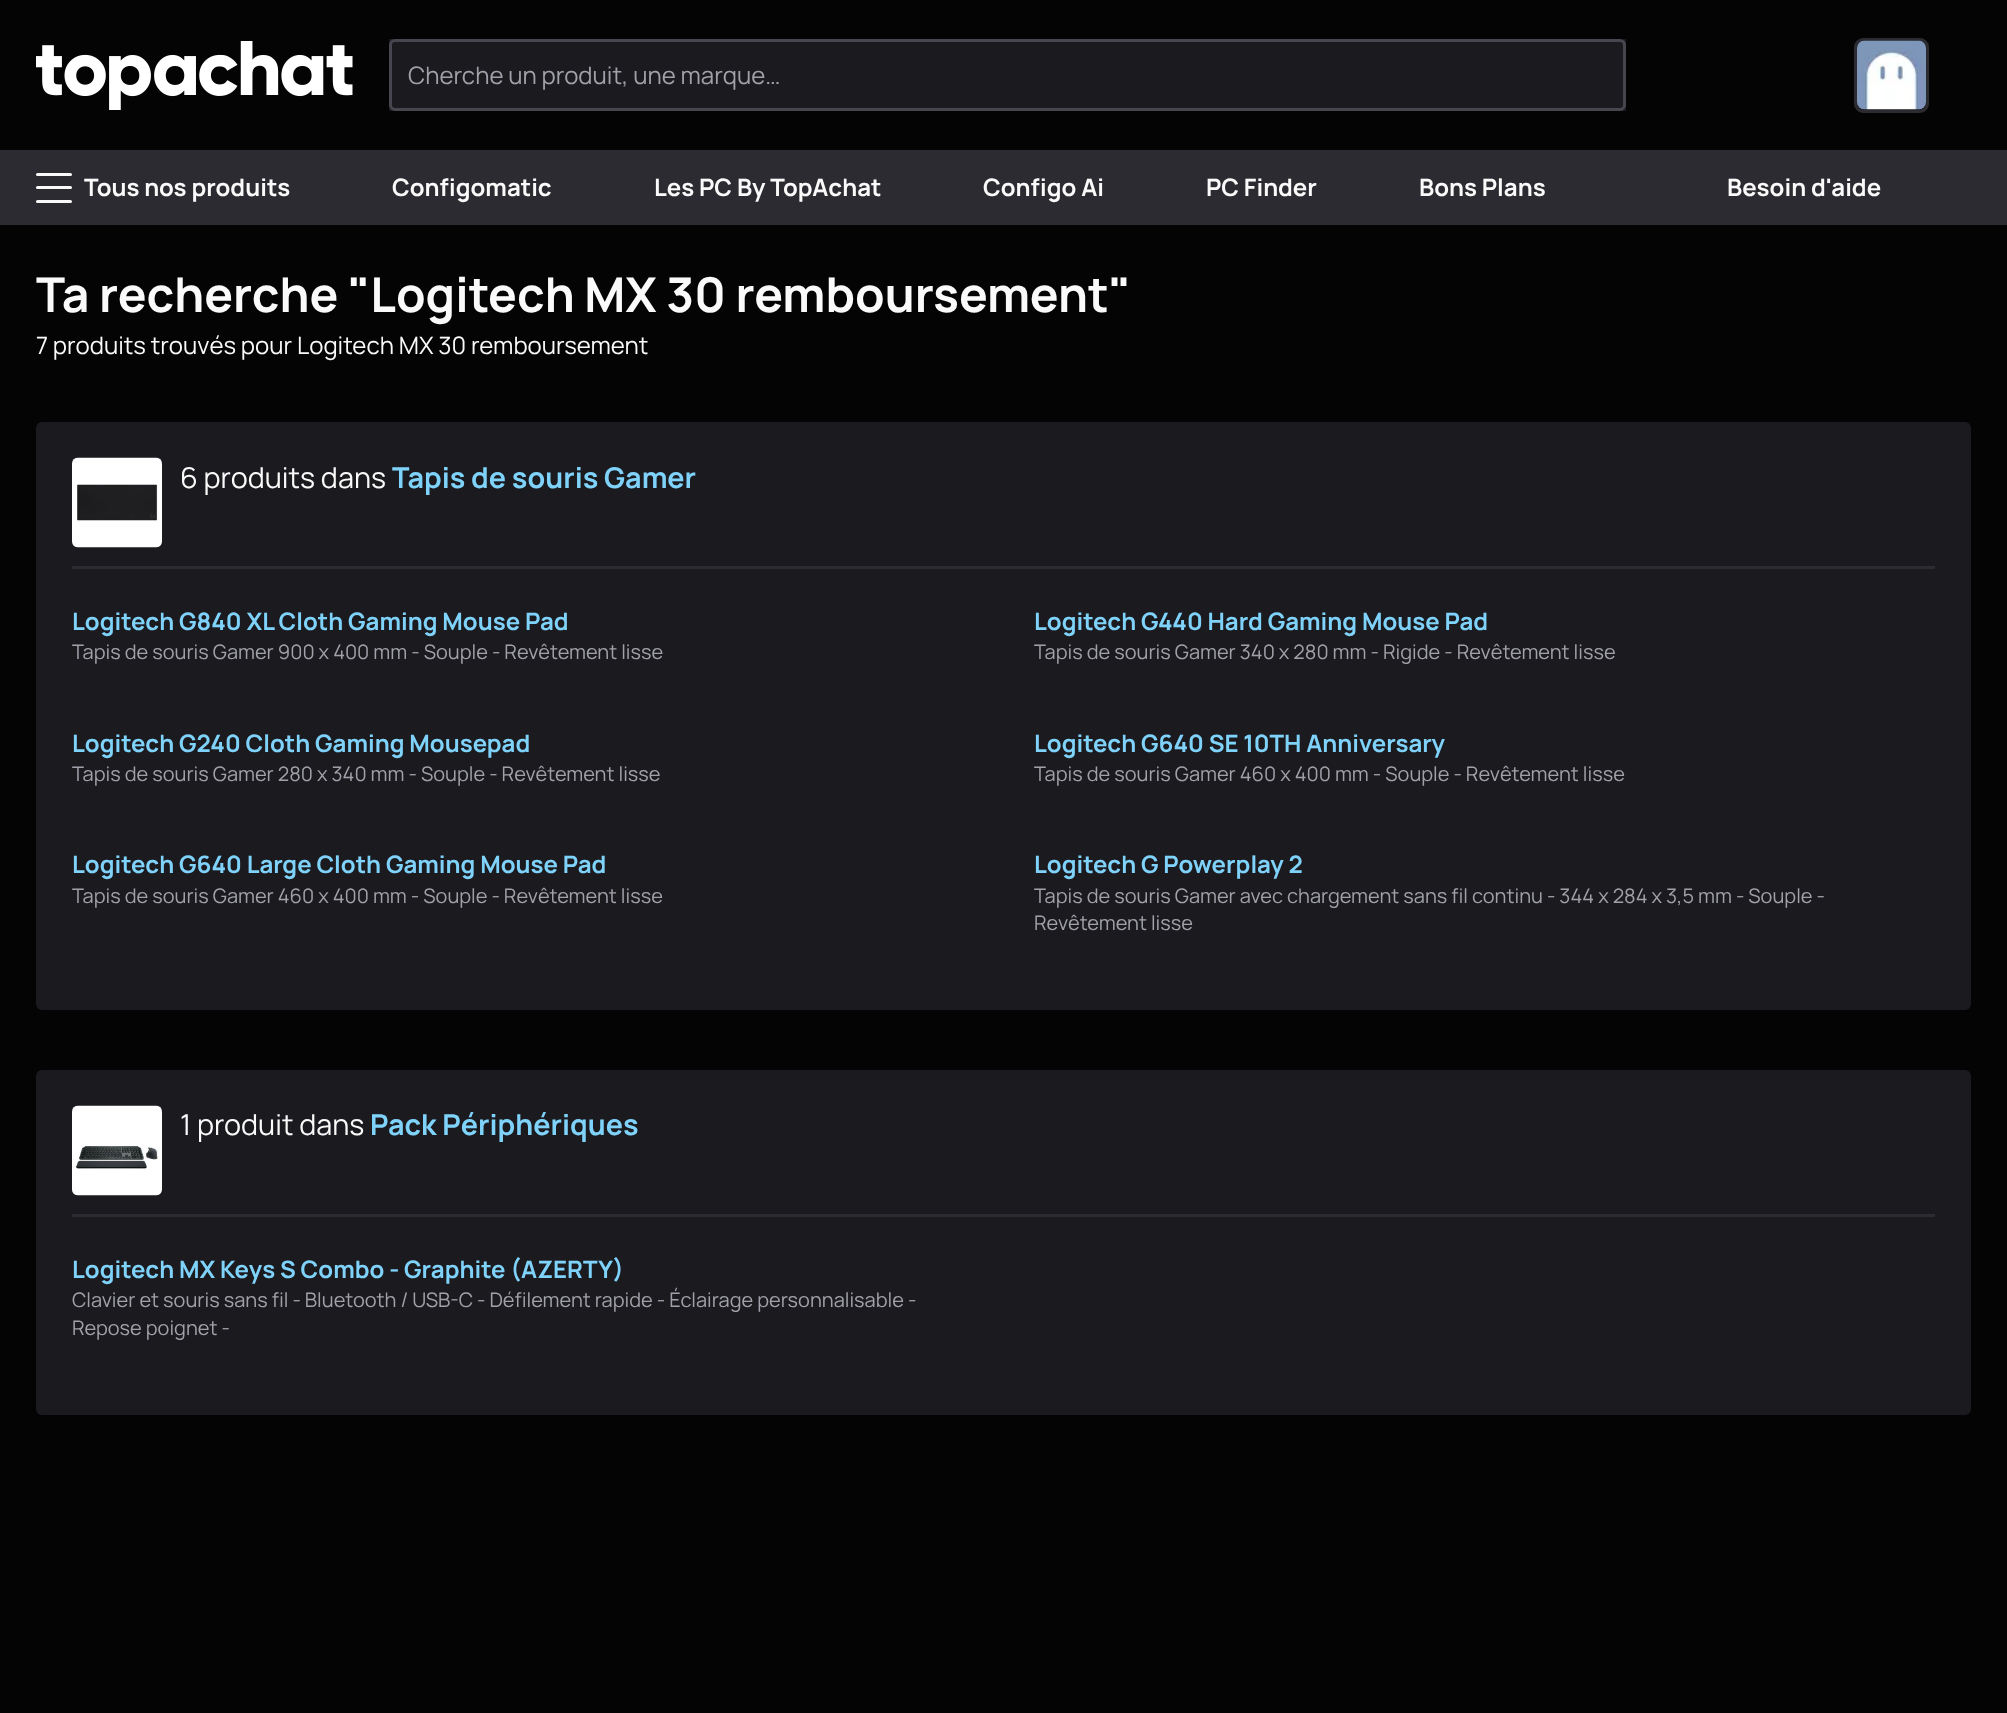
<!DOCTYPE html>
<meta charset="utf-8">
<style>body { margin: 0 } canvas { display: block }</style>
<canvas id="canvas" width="2007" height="1713"></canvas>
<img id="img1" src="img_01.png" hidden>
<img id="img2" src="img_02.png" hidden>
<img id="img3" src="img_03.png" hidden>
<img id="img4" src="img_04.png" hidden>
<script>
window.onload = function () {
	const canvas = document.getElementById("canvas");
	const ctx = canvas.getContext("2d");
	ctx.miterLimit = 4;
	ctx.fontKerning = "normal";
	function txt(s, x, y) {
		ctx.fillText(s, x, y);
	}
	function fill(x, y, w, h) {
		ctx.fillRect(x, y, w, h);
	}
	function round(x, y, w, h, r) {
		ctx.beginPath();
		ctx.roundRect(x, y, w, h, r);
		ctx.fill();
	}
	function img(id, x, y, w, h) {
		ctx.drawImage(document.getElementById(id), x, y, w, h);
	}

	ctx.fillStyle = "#040404";
	fill(0, 0, 2007, 1713);
	img("img1", 36, 41, 317, 69);
	ctx.fillStyle = "#1B1B1F";
	fill(389, 39, 1237, 72);
	ctx.beginPath();
	ctx.roundRect(390.5, 40.5, 1234, 69, 4.5);
	ctx.strokeStyle = "#46464E";
	ctx.lineWidth = 3;
	ctx.stroke();
	ctx.beginPath();
	ctx.roundRect(1855.5, 39.5, 72, 72, 7.5);
	ctx.fill();
	ctx.strokeStyle = "#2B2B31";
	ctx.stroke();
	img("img2", 1857, 40, 69, 70);
	ctx.fillStyle = "#2B2B31";
	fill(0, 150, 2007, 75);
	ctx.fillStyle = "#FAFAFA";
	round(36, 173, 36, 3, 1.5);
	round(36, 186, 36, 3, 1.5);
	round(36, 200, 36, 3, 1.5);
	ctx.fillStyle = "#1B1B1F";
	round(36, 422, 1935, 588, 6);
	ctx.fillStyle = "#2B2B31";
	fill(72, 566, 1863, 3);
	img("img3", 72, 457, 90, 91);
	ctx.fillStyle = "#1B1B1F";
	round(36, 1070, 1935, 345, 6);
	ctx.fillStyle = "#2B2B31";
	fill(72, 1214, 1863, 3);
	img("img4", 72, 1105, 90, 91);
	ctx.font = "24px Manrope";
	ctx.fillStyle = "#A1A1AA";
	txt("Cherche un produit, une marque…", 408, 84);
	ctx.font = "bold 24px Manrope";
	ctx.fillStyle = "#FAFAFA";
	txt("Tous nos produits", 84, 196);
	txt("Configomatic", 392, 196);
	txt("Les PC By TopAchat", 654, 196);
	txt("Configo Ai", 983, 196);
	txt("PC Finder", 1206, 196);
	txt("Bons Plans", 1419, 196);
	txt("Besoin d'aide", 1727, 196);
	ctx.font = "bold 48px Manrope";
	txt("Ta recherche \"Logitech MX 30 remboursement\"", 36, 312);
	ctx.font = "24px Manrope";
	txt("7 produits trouvés pour Logitech MX 30 remboursement", 36, 354);
	ctx.font = "28.75px Manrope";
	txt("6 produits dans", 180, 488);
	ctx.font = "bold 28.75px Manrope";
	ctx.fillStyle = "#7FD2FA";
	txt("Tapis de souris Gamer", 392, 488);
	ctx.font = "bold 24px Manrope";
	txt("Logitech G840 XL Cloth Gaming Mouse Pad", 72, 630);
	ctx.font = "20px Manrope";
	ctx.fillStyle = "#A1A1AA";
	txt("Tapis de souris Gamer 900 x 400 mm - Souple - Revêtement lisse", 72, 659);
	ctx.font = "bold 24px Manrope";
	ctx.fillStyle = "#7FD2FA";
	txt("Logitech G440 Hard Gaming Mouse Pad", 1034, 630);
	ctx.font = "20px Manrope";
	ctx.fillStyle = "#A1A1AA";
	txt("Tapis de souris Gamer 340 x 280 mm - Rigide - Revêtement lisse", 1034, 659);
	ctx.font = "bold 24px Manrope";
	ctx.fillStyle = "#7FD2FA";
	txt("Logitech G240 Cloth Gaming Mousepad", 72, 752);
	ctx.font = "20px Manrope";
	ctx.fillStyle = "#A1A1AA";
	txt("Tapis de souris Gamer 280 x 340 mm - Souple - Revêtement lisse", 72, 781);
	ctx.font = "bold 24px Manrope";
	ctx.fillStyle = "#7FD2FA";
	txt("Logitech G640 SE 10TH Anniversary", 1034, 752);
	ctx.font = "20px Manrope";
	ctx.fillStyle = "#A1A1AA";
	txt("Tapis de souris Gamer 460 x 400 mm - Souple - Revêtement lisse", 1034, 781);
	ctx.font = "bold 24px Manrope";
	ctx.fillStyle = "#7FD2FA";
	txt("Logitech G640 Large Cloth Gaming Mouse Pad", 72, 873);
	ctx.font = "20px Manrope";
	ctx.fillStyle = "#A1A1AA";
	txt("Tapis de souris Gamer 460 x 400 mm - Souple - Revêtement lisse", 72, 903);
	ctx.font = "bold 24px Manrope";
	ctx.fillStyle = "#7FD2FA";
	txt("Logitech G Powerplay 2", 1034, 873);
	ctx.font = "20px Manrope";
	ctx.fillStyle = "#A1A1AA";
	txt("Tapis de souris Gamer avec chargement sans fil continu - 344 x 284 x 3,5 mm - Souple -", 1034, 903);
	txt("Revêtement lisse", 1034, 930);
	ctx.font = "28.75px Manrope";
	ctx.fillStyle = "#FAFAFA";
	txt("1 produit dans", 180, 1135);
	ctx.font = "bold 28.75px Manrope";
	ctx.fillStyle = "#7FD2FA";
	txt("Pack Périphériques", 370, 1135);
	ctx.font = "bold 24px Manrope";
	txt("Logitech MX Keys S Combo - Graphite (AZERTY)", 72, 1278);
	ctx.font = "20px Manrope";
	ctx.fillStyle = "#A1A1AA";
	txt("Clavier et souris sans fil - Bluetooth / USB-C - Défilement rapide - Éclairage personnalisable -", 72, 1307);
	txt("Repose poignet -", 72, 1335);
};
</script>
